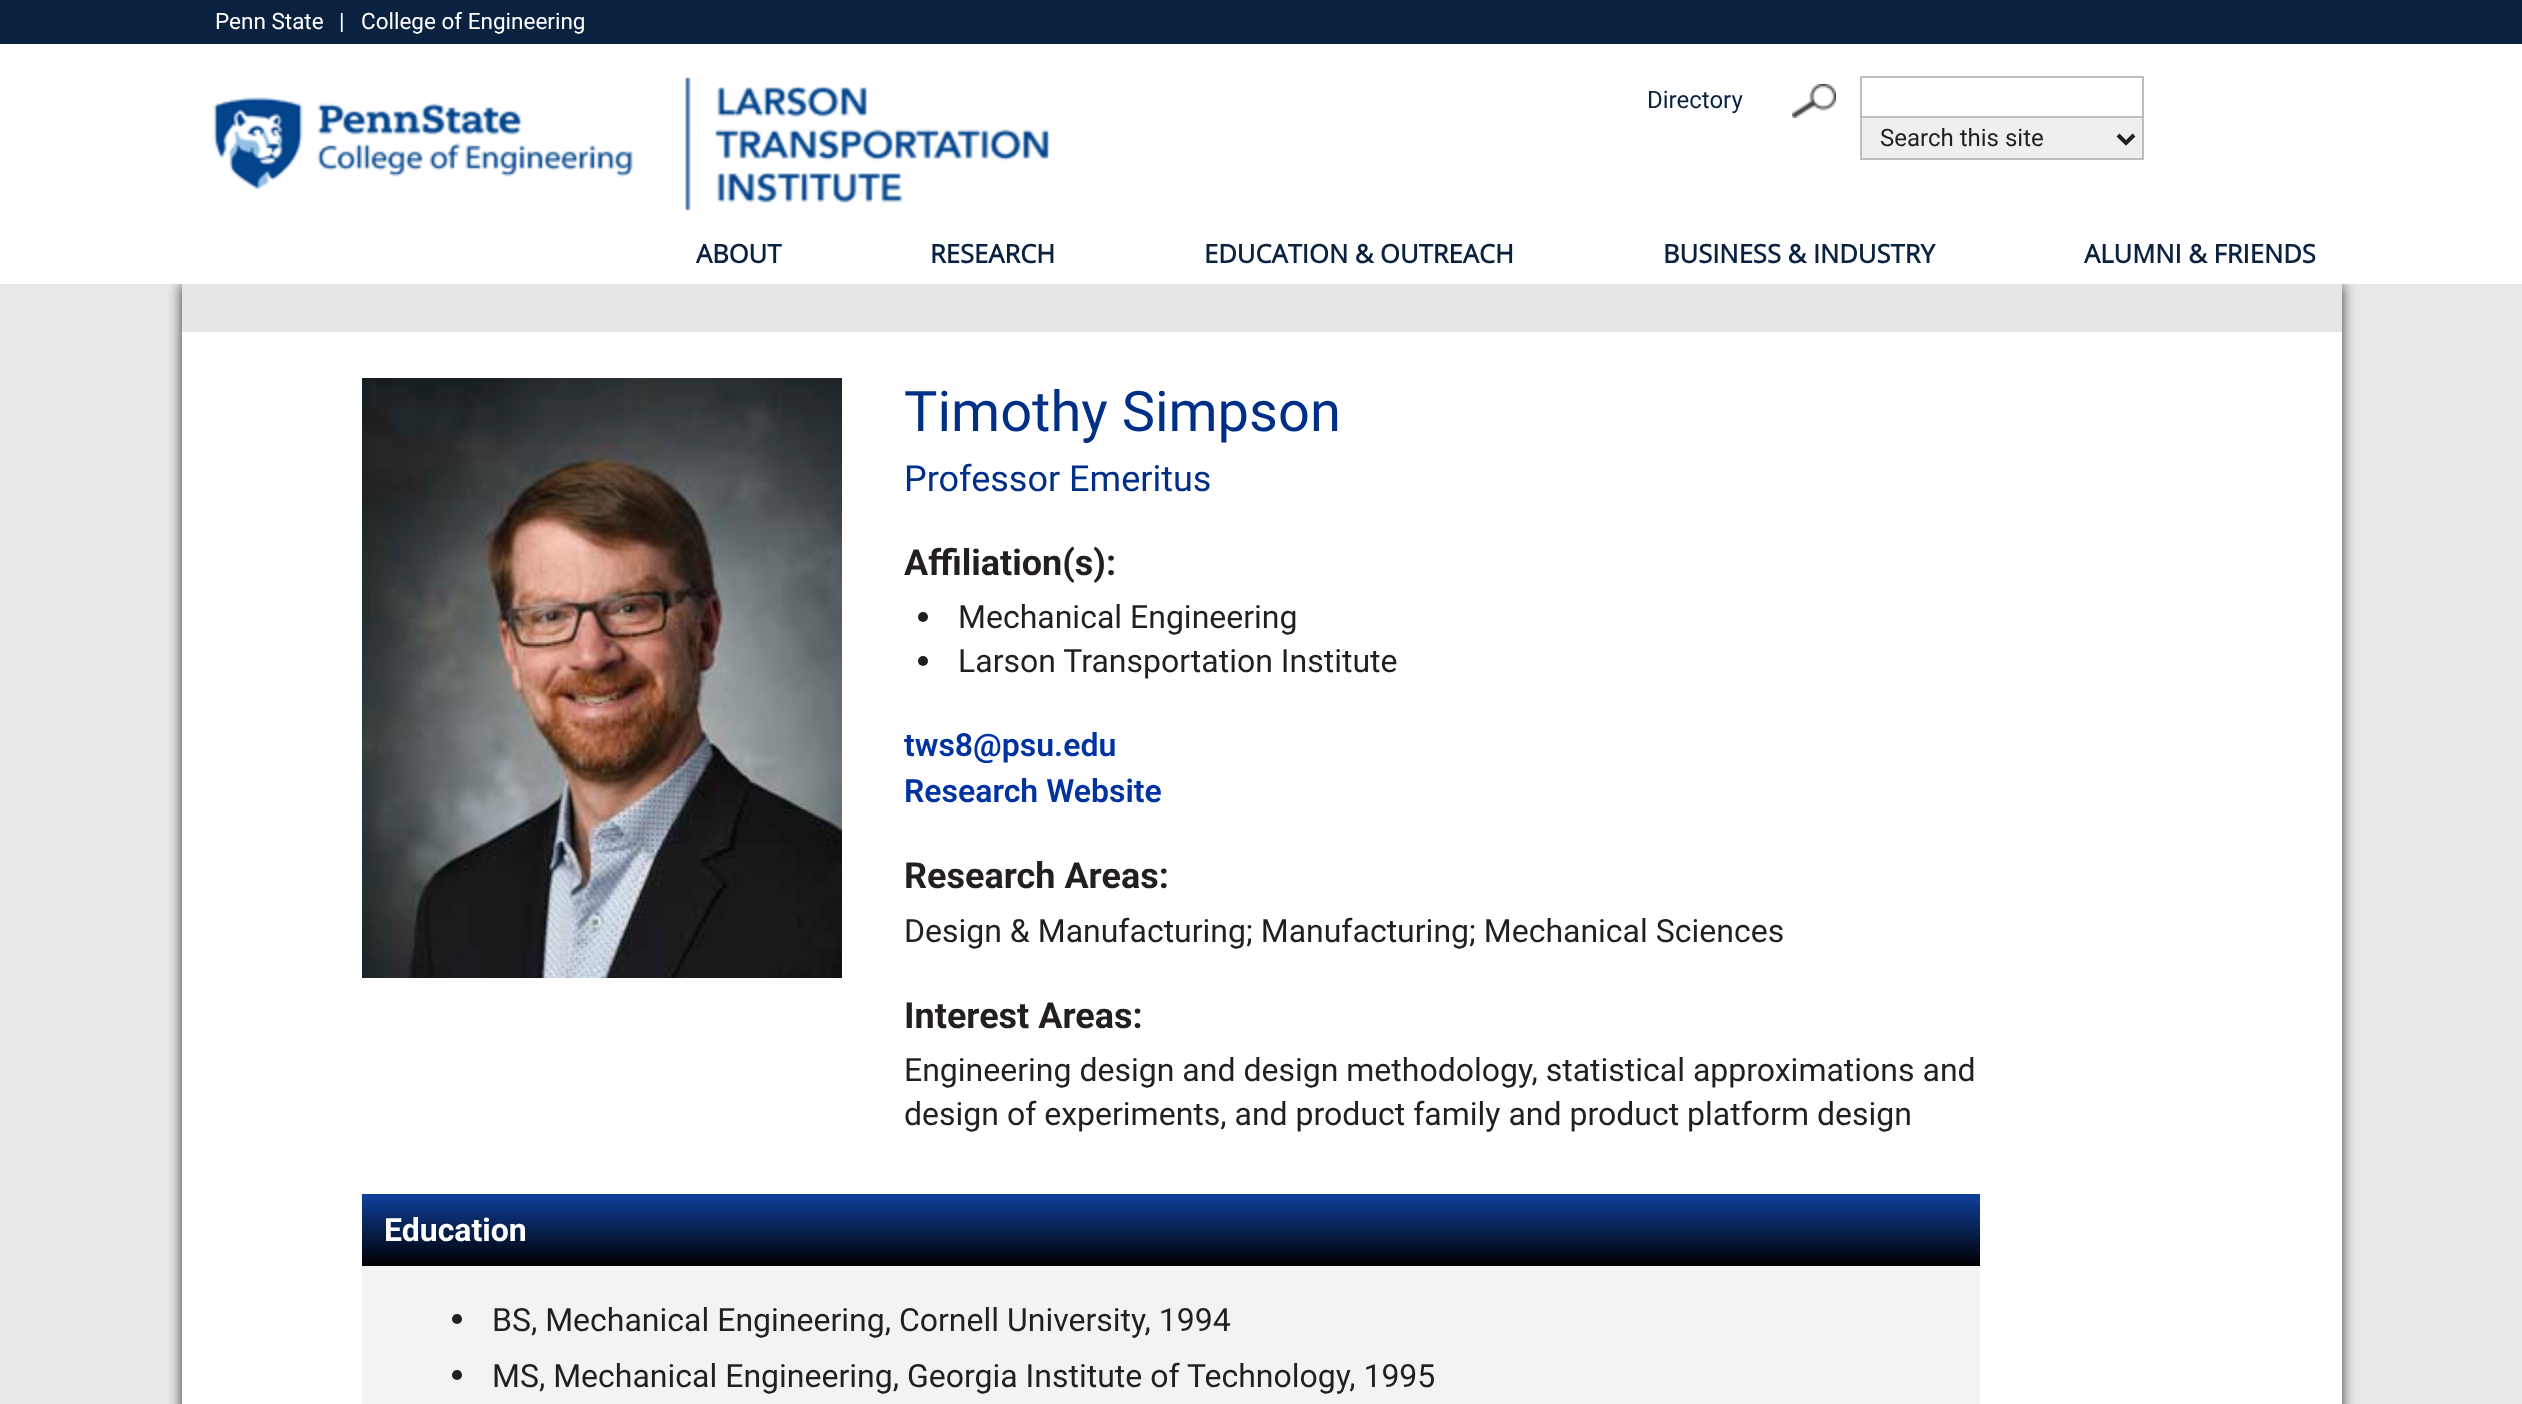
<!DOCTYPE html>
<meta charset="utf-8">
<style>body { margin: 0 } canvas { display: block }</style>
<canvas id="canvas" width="2522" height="1404"></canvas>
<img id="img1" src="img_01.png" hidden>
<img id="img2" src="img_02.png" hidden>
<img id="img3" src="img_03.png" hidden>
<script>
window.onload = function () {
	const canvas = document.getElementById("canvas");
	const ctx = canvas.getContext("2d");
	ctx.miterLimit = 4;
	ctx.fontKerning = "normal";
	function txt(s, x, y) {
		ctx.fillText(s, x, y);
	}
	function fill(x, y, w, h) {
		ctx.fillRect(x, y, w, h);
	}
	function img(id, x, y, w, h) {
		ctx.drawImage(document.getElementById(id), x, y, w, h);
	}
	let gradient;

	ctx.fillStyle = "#E6E8EA";
	fill(0, 0, 2522, 1404);
	ctx.fillStyle = "#0A2240";
	fill(0, 0, 2522, 44);
	ctx.fillStyle = "#333333";
	ctx.filter = "blur(7px)";
	ctx.beginPath();
	ctx.rect(182, 284, 2160, 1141);
	ctx.fill();
	ctx.filter = "none";
	ctx.fillStyle = "#FFFFFF";
	fill(0, 44, 2522, 240);
	img("img1", 213, 77, 836, 134);
	ctx.strokeStyle = "#BEBEBE";
	ctx.lineWidth = 2;
	ctx.strokeRect(1861, 77, 282, 40);
	img("img2", 1792, 84, 44, 34);
	ctx.fillStyle = "#EFEFEF";
	fill(1862, 118, 280, 40);
	ctx.fillStyle = "#BEBEBE";
	fill(2142, 118, 2, 42);
	fill(1860, 158, 284, 2);
	fill(1860, 118, 2, 42);
	ctx.beginPath();
	ctx.moveTo(2118, 135);
	ctx.lineTo(2126, 143);
	ctx.lineTo(2134, 135);
	ctx.strokeStyle = "#231F20";
	ctx.lineWidth = 4;
	ctx.stroke();
	ctx.fillStyle = "#FFFFFF";
	fill(182, 332, 2160, 1072);
	ctx.fillStyle = "#E5E6E8";
	fill(182, 284, 2160, 48);
	img("img3", 362, 378, 480, 600);
	ctx.fillStyle = "#231F20";
	ctx.beginPath();
	ctx.arc(923, 617, 5, 0, Math.PI * 2);
	ctx.fill();
	ctx.beginPath();
	ctx.arc(923, 661, 5, 0, Math.PI * 2);
	ctx.fill();
	gradient = ctx.createLinearGradient(1171, 1194, 1171, 1266);
	gradient.addColorStop(0, "#0E419F");
	gradient.addColorStop(1, "#000000");
	ctx.fillStyle = gradient;
	fill(362, 1194, 1618, 72);
	ctx.fillStyle = "#F3F3F3";
	fill(362, 1266, 1618, 138);
	ctx.fillStyle = "#231F20";
	ctx.beginPath();
	ctx.arc(457, 1319, 5, 0, Math.PI * 2);
	ctx.fill();
	ctx.beginPath();
	ctx.arc(457, 1375, 5, 0, Math.PI * 2);
	ctx.fill();
	ctx.font = "22.5px Roboto";
	ctx.fillStyle = "#FFFFFF";
	txt("Penn State", 215, 29);
	txt("|", 339, 29);
	txt("College of Engineering", 361, 29);
	ctx.font = "24px Roboto";
	ctx.fillStyle = "#0A2240";
	txt("Directory", 1647, 108);
	ctx.fillStyle = "#231F20";
	txt("Search this site", 1880, 146);
	ctx.font = "bold 25.6px Open Sans";
	ctx.fillStyle = "#0A2240";
	txt("ABOUT", 696, 263);
	txt("RESEARCH", 930, 263);
	txt("EDUCATION & OUTREACH", 1204, 263);
	txt("BUSINESS & INDUSTRY", 1663, 263);
	txt("ALUMNI & FRIENDS", 2084, 263);
	ctx.font = "56px Roboto";
	ctx.fillStyle = "#002F87";
	txt("Timothy Simpson", 904, 431);
	ctx.font = "36px Roboto";
	txt("Professor Emeritus", 904, 491);
	ctx.font = "bold 36px Roboto";
	ctx.fillStyle = "#231F20";
	txt("Affiliation(s):", 904, 575);
	ctx.font = "32px Roboto";
	txt("Mechanical Engineering", 958, 628);
	txt("Larson Transportation Institute", 958, 672);
	ctx.font = "600 32px Roboto";
	ctx.fillStyle = "#0033A1";
	txt("tws8@psu.edu", 904, 756);
	txt("Research Website", 904, 802);
	ctx.font = "bold 36px Roboto";
	ctx.fillStyle = "#231F20";
	txt("Research Areas:", 904, 888);
	ctx.font = "32px Roboto";
	txt("Design & Manufacturing; Manufacturing; Mechanical Sciences", 904, 942);
	ctx.font = "bold 36px Roboto";
	txt("Interest Areas:", 904, 1028);
	ctx.font = "32px Roboto";
	txt("Engineering design and design methodology, statistical approximations and", 904, 1081);
	txt("design of experiments, and product family and product platform design", 904, 1125);
	ctx.font = "bold 32px Roboto";
	ctx.fillStyle = "#FFFFFF";
	txt("Education", 384, 1241);
	ctx.font = "32px Roboto";
	ctx.fillStyle = "#231F20";
	txt("BS, Mechanical Engineering, Cornell University, 1994", 492, 1331);
	txt("MS, Mechanical Engineering, Georgia Institute of Technology, 1995", 492, 1387);
};
</script>
